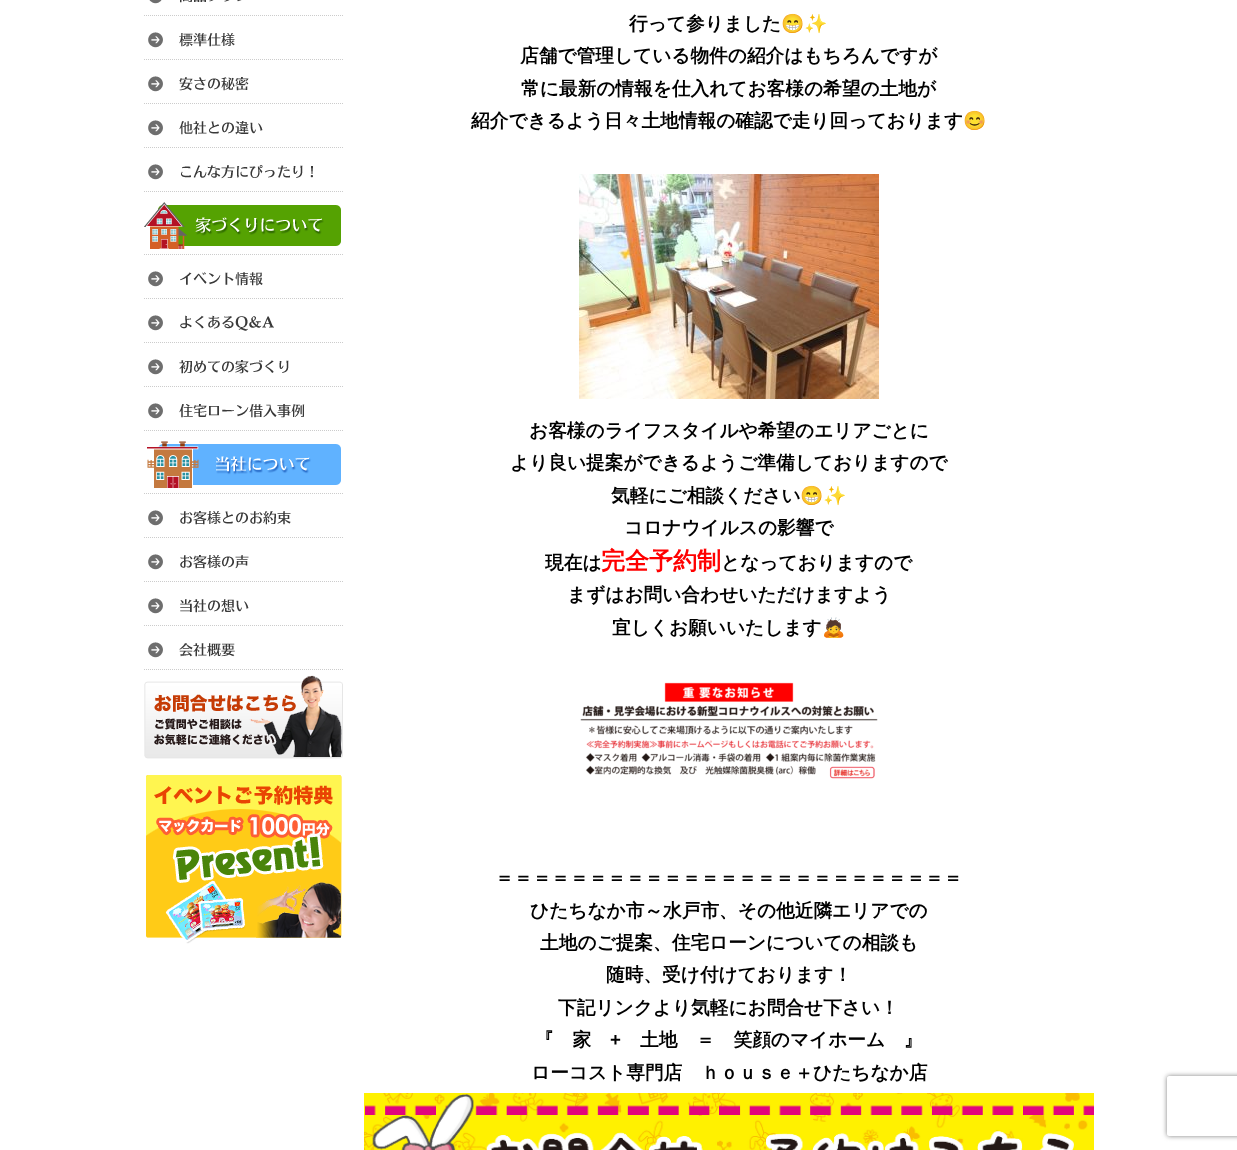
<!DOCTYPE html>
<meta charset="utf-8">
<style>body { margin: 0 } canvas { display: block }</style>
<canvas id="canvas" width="1237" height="1150"></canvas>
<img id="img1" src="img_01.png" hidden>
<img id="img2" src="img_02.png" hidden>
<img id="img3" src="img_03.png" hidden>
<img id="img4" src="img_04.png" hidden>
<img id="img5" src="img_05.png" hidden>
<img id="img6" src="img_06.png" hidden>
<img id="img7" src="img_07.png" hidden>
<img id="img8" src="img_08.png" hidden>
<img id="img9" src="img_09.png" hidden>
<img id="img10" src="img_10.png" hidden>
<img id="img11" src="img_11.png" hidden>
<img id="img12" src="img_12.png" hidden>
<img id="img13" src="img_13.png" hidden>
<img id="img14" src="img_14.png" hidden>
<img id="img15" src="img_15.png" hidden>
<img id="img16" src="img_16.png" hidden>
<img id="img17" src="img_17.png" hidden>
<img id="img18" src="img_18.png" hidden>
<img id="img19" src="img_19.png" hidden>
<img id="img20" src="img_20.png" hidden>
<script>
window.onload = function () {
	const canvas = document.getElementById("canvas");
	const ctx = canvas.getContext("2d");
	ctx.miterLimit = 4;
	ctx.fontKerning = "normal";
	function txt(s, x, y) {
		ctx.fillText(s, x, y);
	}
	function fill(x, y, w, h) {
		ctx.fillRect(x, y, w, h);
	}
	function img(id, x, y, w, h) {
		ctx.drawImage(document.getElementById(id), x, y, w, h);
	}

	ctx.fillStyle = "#FFFFFF";
	fill(0, 0, 1237, 1150);
	ctx.beginPath();
	ctx.moveTo(144, 15.5);
	ctx.lineTo(344, 15.5);
	ctx.strokeStyle = "#CCCCCC";
	ctx.setLineDash([1, 1]);
	ctx.stroke();
	img("img1", 149, 0, 93, 4);
	ctx.beginPath();
	ctx.moveTo(144, 59.5);
	ctx.lineTo(344, 59.5);
	ctx.stroke();
	img("img2", 148, 32, 87, 16);
	ctx.beginPath();
	ctx.moveTo(144, 103.5);
	ctx.lineTo(344, 103.5);
	ctx.stroke();
	img("img3", 148, 76, 101, 16);
	ctx.beginPath();
	ctx.moveTo(144, 147.5);
	ctx.lineTo(344, 147.5);
	ctx.stroke();
	img("img4", 148, 120, 115, 16);
	ctx.beginPath();
	ctx.moveTo(144, 191.5);
	ctx.lineTo(344, 191.5);
	ctx.stroke();
	img("img5", 148, 164, 165, 16);
	ctx.beginPath();
	ctx.moveTo(144, 254.5);
	ctx.lineTo(344, 254.5);
	ctx.stroke();
	img("img6", 144, 202, 197, 47);
	ctx.beginPath();
	ctx.moveTo(144, 298.5);
	ctx.lineTo(344, 298.5);
	ctx.stroke();
	img("img7", 148, 271, 115, 16);
	ctx.beginPath();
	ctx.moveTo(144, 342.5);
	ctx.lineTo(344, 342.5);
	ctx.stroke();
	img("img8", 148, 315, 126, 16);
	ctx.beginPath();
	ctx.moveTo(144, 386.5);
	ctx.lineTo(344, 386.5);
	ctx.stroke();
	img("img9", 148, 359, 141, 16);
	ctx.beginPath();
	ctx.moveTo(144, 430.5);
	ctx.lineTo(344, 430.5);
	ctx.stroke();
	img("img10", 148, 403, 157, 16);
	ctx.beginPath();
	ctx.moveTo(144, 493.5);
	ctx.lineTo(344, 493.5);
	ctx.stroke();
	img("img11", 147, 441, 194, 47);
	ctx.beginPath();
	ctx.moveTo(144, 537.5);
	ctx.lineTo(344, 537.5);
	ctx.stroke();
	img("img12", 148, 510, 143, 16);
	ctx.beginPath();
	ctx.moveTo(144, 581.5);
	ctx.lineTo(344, 581.5);
	ctx.stroke();
	img("img13", 148, 554, 101, 16);
	ctx.beginPath();
	ctx.moveTo(144, 625.5);
	ctx.lineTo(344, 625.5);
	ctx.stroke();
	img("img14", 148, 598, 101, 16);
	ctx.beginPath();
	ctx.moveTo(144, 669.5);
	ctx.lineTo(344, 669.5);
	ctx.stroke();
	img("img15", 148, 642, 87, 16);
	img("img16", 144, 675, 199, 84);
	img("img17", 146, 775, 196, 169);
	img("img18", 579, 174, 300, 225);
	img("img19", 580, 682, 298, 97);
	img("img20", 364, 1093, 730, 57);
	ctx.save();
	ctx.beginPath();
	ctx.moveTo(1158, 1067);
	ctx.lineTo(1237, 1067);
	ctx.lineTo(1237, 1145);
	ctx.lineTo(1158, 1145);
	ctx.closePath();
	ctx.moveTo(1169, 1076);
	ctx.lineTo(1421, 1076);
	ctx.bezierCurveTo(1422, 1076, 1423, 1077, 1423, 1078);
	ctx.lineTo(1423, 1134);
	ctx.bezierCurveTo(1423, 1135, 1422, 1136, 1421, 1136);
	ctx.lineTo(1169, 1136);
	ctx.bezierCurveTo(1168, 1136, 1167, 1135, 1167, 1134);
	ctx.lineTo(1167, 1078);
	ctx.bezierCurveTo(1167, 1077, 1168, 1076, 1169, 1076);
	ctx.closePath();
	ctx.clip("evenodd");
	ctx.fillStyle = "#808080";
	ctx.filter = "blur(2.5px)";
	ctx.beginPath();
	ctx.roundRect(1167, 1076, 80, 60, 2);
	ctx.fill();
	ctx.filter = "none";
	ctx.restore();
	ctx.font = "bold 18.7px WenQuanYi Zen Hei";
	ctx.fillStyle = "#000000";
	txt("行って参りました", 629, 30);
	ctx.font = "bold 18.7px Noto Color Emoji";
	txt("😁✨", 781, 30);
	ctx.font = "bold 18.7px WenQuanYi Zen Hei";
	txt("店舗で管理している物件の紹介はもちろんですが", 520, 62);
	txt("常に最新の情報を仕入れてお客様の希望の土地が", 521, 95);
	txt("紹介できるよう日々土地情報の確認で走り回っております", 471, 127);
	ctx.font = "bold 18.7px Noto Color Emoji";
	txt("😊", 963, 127);
	ctx.font = "bold 18.7px WenQuanYi Zen Hei";
	txt("お客様のライフスタイルや希望のエリアごとに", 529, 437);
	txt("より良い提案ができるようご準備しておりますので", 510, 469);
	txt("気軽にご相談ください", 611, 502);
	ctx.font = "bold 18.7px Noto Color Emoji";
	txt("😁✨", 800, 502);
	ctx.font = "bold 18.7px WenQuanYi Zen Hei";
	txt("コロナウイルスの影響で", 624, 534);
	txt("現在は", 545, 569);
	ctx.font = "bold 24px WenQuanYi Zen Hei";
	ctx.fillStyle = "#FF0000";
	txt("完全予約制", 601, 569);
	ctx.font = "bold 18.7px WenQuanYi Zen Hei";
	ctx.fillStyle = "#000000";
	txt("となっておりますので", 721, 569);
	txt("まずはお問い合わせいただけますよう", 567, 601);
	txt("宜しくお願いいたします", 612, 634);
	ctx.font = "bold 18.7px Noto Color Emoji";
	txt("🙇", 822, 634);
	ctx.font = "bold 18.7px WenQuanYi Zen Hei";
	txt("＝＝＝＝＝＝＝＝＝＝＝＝＝＝＝＝＝＝＝＝＝＝＝＝＝", 495, 884);
	txt("ひたちなか市～水戸市、その他近隣エリアでの", 530, 917);
	txt("土地のご提案、住宅ローンについての相談も", 540, 949);
	txt("随時、受け付けております！", 606, 981);
	txt("下記リンクより気軽にお問合せ下さい！", 558, 1014);
	txt("『　家", 535, 1046);
	ctx.font = "bold 18.7px Liberation Sans";
	txt("+", 610, 1046);
	ctx.font = "bold 18.7px WenQuanYi Zen Hei";
	txt("土地　＝　笑顔のマイホーム　』", 640, 1046);
	txt("ローコスト専門店　ｈｏｕｓｅ＋ひたちなか店", 531, 1079);
};
</script>
